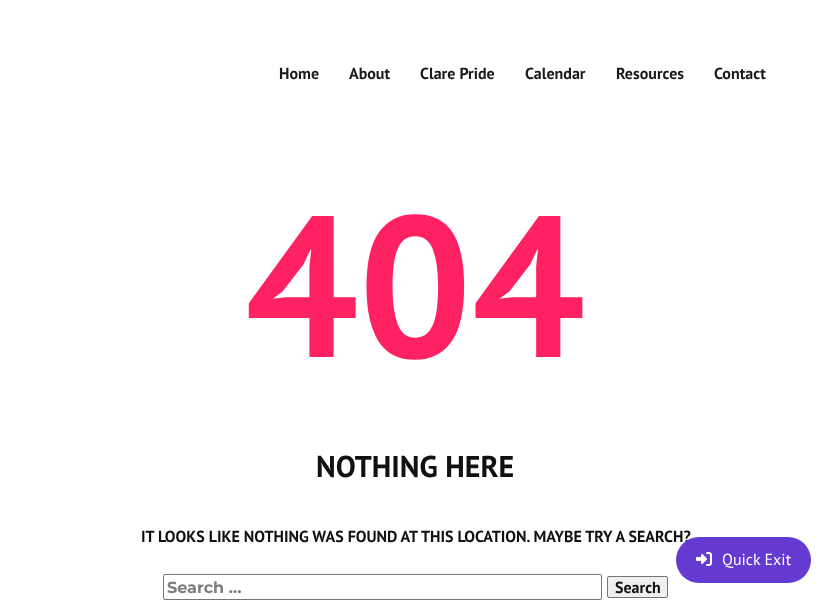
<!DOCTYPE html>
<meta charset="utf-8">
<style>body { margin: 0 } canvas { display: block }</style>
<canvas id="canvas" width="831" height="603"></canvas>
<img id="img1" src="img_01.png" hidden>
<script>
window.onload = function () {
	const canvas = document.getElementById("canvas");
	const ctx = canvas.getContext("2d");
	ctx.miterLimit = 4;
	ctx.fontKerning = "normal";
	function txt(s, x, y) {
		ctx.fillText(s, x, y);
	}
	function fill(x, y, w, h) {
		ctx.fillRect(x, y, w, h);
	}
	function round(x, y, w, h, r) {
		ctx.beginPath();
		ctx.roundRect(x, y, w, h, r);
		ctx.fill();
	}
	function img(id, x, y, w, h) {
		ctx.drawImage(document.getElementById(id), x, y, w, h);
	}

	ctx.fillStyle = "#FFFFFF";
	fill(0, 0, 831, 603);
	ctx.beginPath();
	ctx.roundRect(163.5, 574.5, 438, 25, 1.5);
	ctx.strokeStyle = "#767676";
	ctx.stroke();
	ctx.fillStyle = "#EFEFEF";
	ctx.beginPath();
	ctx.roundRect(607.5, 576.5, 60, 21, 1.5);
	ctx.fill();
	ctx.stroke();
	ctx.font = "bold 16px PT Sans";
	ctx.fillStyle = "#1A1A1A";
	txt("Home", 279, 79);
	txt("About", 349, 79);
	txt("Clare Pride", 420, 79);
	txt("Calendar", 525, 79);
	txt("Resources", 616, 79);
	txt("Contact", 714, 79);
	ctx.font = "bold 200px PT Sans";
	ctx.fillStyle = "#FF2263";
	txt("404", 245, 357);
	ctx.font = "bold 30px PT Sans";
	ctx.fillStyle = "#111111";
	txt("NOTHING HERE", 316, 477);
	ctx.font = "bold 16px PT Sans";
	txt("IT LOOKS LIKE NOTHING WAS FOUND AT THIS LOCATION. MAYBE TRY A SEARCH?", 141, 542);
	ctx.font = "bold 16px Montserrat";
	ctx.fillStyle = "#7E7E7E";
	txt("Search …", 167, 593);
	ctx.font = "bold 16px PT Sans";
	ctx.fillStyle = "#111111";
	txt("Search", 615, 593);
	ctx.fillStyle = "#643AD0";
	round(676, 537, 135, 46, 23);
	img("img1", 696, 552, 16, 14);
	ctx.font = "16px PT Sans";
	ctx.fillStyle = "#FFFFFF";
	txt("Quick Exit", 722, 565);
};
</script>
